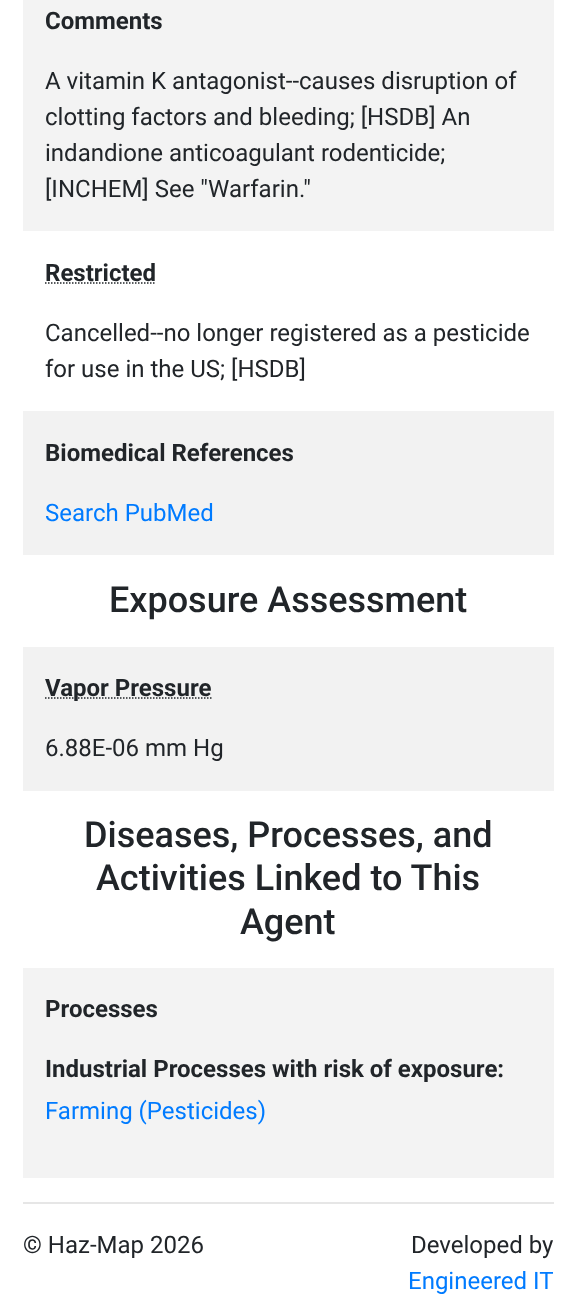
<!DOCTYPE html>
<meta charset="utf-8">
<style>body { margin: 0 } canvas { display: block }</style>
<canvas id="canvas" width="575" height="1298"></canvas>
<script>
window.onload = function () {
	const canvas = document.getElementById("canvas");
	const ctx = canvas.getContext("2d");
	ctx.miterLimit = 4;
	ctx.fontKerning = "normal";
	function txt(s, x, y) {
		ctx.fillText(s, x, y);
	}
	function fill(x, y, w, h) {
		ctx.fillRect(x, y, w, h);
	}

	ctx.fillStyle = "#FFFFFF";
	fill(0, 0, 575, 1298);
	ctx.fillStyle = "#F3F3F3";
	fill(23, 0, 531, 231);
	ctx.beginPath();
	ctx.moveTo(45, 283);
	ctx.lineTo(156, 283);
	ctx.strokeStyle = "#212529";
	ctx.lineWidth = 1.5;
	ctx.setLineDash([1.5, 1.5]);
	ctx.stroke();
	ctx.fillStyle = "#F2F2F2";
	fill(23, 411, 531, 144);
	fill(23, 647, 531, 144);
	ctx.beginPath();
	ctx.moveTo(45, 698);
	ctx.lineTo(211.5, 698);
	ctx.stroke();
	ctx.fillStyle = "#F3F3F3";
	fill(23, 968, 531, 210);
	ctx.fillStyle = "#E6E6E6";
	fill(23, 1202, 531, 2);
	ctx.font = "bold 24px Roboto";
	ctx.fillStyle = "#212529";
	txt("Comments", 45, 29);
	ctx.font = "24px Roboto";
	txt("A vitamin K antagonist--causes disruption of", 45, 89);
	txt("clotting factors and bleeding; [HSDB] An", 45, 125);
	txt("indandione anticoagulant rodenticide;", 45, 161);
	txt("[INCHEM] See \"Warfarin.\"", 45, 197);
	ctx.font = "bold 24px Roboto";
	txt("Restricted", 45, 281);
	ctx.font = "24px Roboto";
	txt("Cancelled--no longer registered as a pesticide", 45, 341);
	txt("for use in the US; [HSDB]", 45, 377);
	ctx.font = "bold 24px Roboto";
	txt("Biomedical References", 45, 461);
	ctx.font = "24px Roboto";
	ctx.fillStyle = "#007BFF";
	txt("Search PubMed", 45, 521);
	ctx.font = "500 36px Roboto";
	ctx.fillStyle = "#212529";
	txt("Exposure Assessment", 109, 612);
	ctx.font = "bold 24px Roboto";
	txt("Vapor Pressure", 45, 696);
	ctx.font = "24px Roboto";
	txt("6.88E-06 mm Hg", 45, 756);
	ctx.font = "500 36px Roboto";
	txt("Diseases, Processes, and", 84, 847);
	txt("Activities Linked to This", 96, 890);
	txt("Agent", 240, 934);
	ctx.font = "bold 24px Roboto";
	txt("Processes", 45, 1017);
	txt("Industrial Processes with risk of exposure:", 45, 1077);
	ctx.font = "24px Roboto";
	ctx.fillStyle = "#007BFF";
	txt("Farming (Pesticides)", 45, 1119);
	ctx.fillStyle = "#212529";
	txt("© Haz-Map 2026", 23, 1253);
	txt("Developed by", 411, 1253);
	ctx.fillStyle = "#007BFF";
	txt("Engineered IT", 408, 1289);
};
</script>
